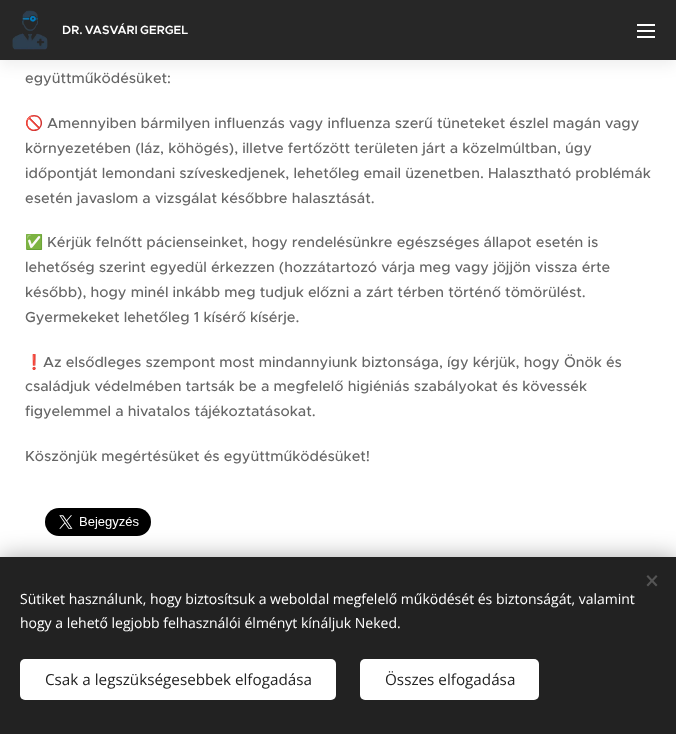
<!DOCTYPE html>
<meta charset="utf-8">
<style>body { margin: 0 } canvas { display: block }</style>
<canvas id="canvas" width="676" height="734"></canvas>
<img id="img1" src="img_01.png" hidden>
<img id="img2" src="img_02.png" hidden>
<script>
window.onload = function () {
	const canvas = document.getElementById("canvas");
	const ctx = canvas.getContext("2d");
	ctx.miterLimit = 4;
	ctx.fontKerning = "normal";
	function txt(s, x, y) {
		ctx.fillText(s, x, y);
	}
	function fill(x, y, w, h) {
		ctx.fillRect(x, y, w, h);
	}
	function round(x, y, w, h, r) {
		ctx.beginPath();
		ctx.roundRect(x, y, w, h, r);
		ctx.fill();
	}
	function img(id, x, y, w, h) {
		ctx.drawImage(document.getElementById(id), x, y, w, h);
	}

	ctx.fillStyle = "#FFFFFF";
	fill(0, 0, 676, 734);
	ctx.fillStyle = "rgba(0, 0, 0, 0.07)";
	ctx.filter = "blur(7.5px)";
	ctx.beginPath();
	ctx.rect(0, 5, 676, 60);
	ctx.fill();
	ctx.filter = "none";
	ctx.fillStyle = "#272727";
	fill(0, 0, 676, 60);
	img("img1", 12, 10, 36, 40);
	ctx.fillStyle = "#FFFFFF";
	fill(637, 30, 18, 2);
	fill(637, 24, 18, 2);
	fill(637, 36, 18, 2);
	img("img2", 45, 508, 106, 28);
	ctx.fillStyle = "rgba(0, 0, 0, 0.33)";
	ctx.filter = "blur(12.5px)";
	ctx.beginPath();
	ctx.rect(0, 557, 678, 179);
	ctx.fill();
	ctx.filter = "none";
	ctx.fillStyle = "#222222";
	fill(0, 557, 676, 177);
	ctx.fillStyle = "#555555";
	ctx.beginPath();
	ctx.moveTo(646.5, 585);
	ctx.lineTo(656, 575);
	ctx.lineTo(657.5, 576.5);
	ctx.lineTo(648, 586.5);
	ctx.closePath();
	ctx.fill();
	ctx.beginPath();
	ctx.moveTo(648, 575);
	ctx.lineTo(657.5, 585);
	ctx.lineTo(656, 586.5);
	ctx.lineTo(646.5, 576.5);
	ctx.closePath();
	ctx.fill();
	ctx.fillStyle = "#FFFFFF";
	round(20, 659, 316, 41, 5);
	round(360, 659, 179, 41, 5);
	ctx.wordSpacing = "-1px";
	ctx.font = "600 12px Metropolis";
	txt("DR. VASVÁRI GERGEL", 62, 34);
	ctx.wordSpacing = "0px";
	ctx.font = "500 14.6px Metropolis";
	ctx.fillStyle = "#666666";
	txt("együttműködésüket:", 25, 83);
	ctx.font = "14.6px Noto Color Emoji";
	txt("🚫", 25, 128);
	ctx.font = "500 14.6px Metropolis";
	txt("Amennyiben bármilyen influenzás vagy influenza szerű tüneteket észlel magán vagy", 47, 128);
	txt("környezetében (láz, köhögés), illetve fertőzött területen járt a közelmúltban, úgy", 25, 153);
	txt("időpontját lemondani szíveskedjenek, lehetőleg email üzenetben. Halasztható problémák", 25, 178);
	txt("esetén javaslom a vizsgálat későbbre halasztását.", 25, 203);
	ctx.font = "14.6px Noto Color Emoji";
	txt("✅", 25, 247);
	ctx.font = "500 14.6px Metropolis";
	txt("Kérjük felnőtt pácienseinket, hogy rendelésünkre egészséges állapot esetén is", 47, 247);
	txt("lehetőség szerint egyedül érkezzen (hozzátartozó várja meg vagy jöjjön vissza érte", 25, 272);
	txt("később), hogy minél inkább meg tudjuk előzni a zárt térben történő tömörülést.", 25, 297);
	txt("Gyermekeket lehetőleg 1 kísérő kísérje.", 25, 322);
	ctx.font = "14.6px Noto Color Emoji";
	txt("❗", 25, 367);
	ctx.font = "500 14.6px Metropolis";
	txt("Az elsődleges szempont most mindannyiunk biztonsága, így kérjük, hogy Önök és", 43, 367);
	txt("családjuk védelmében tartsák be a megfelelő higiéniás szabályokat és kövessék", 25, 391);
	txt("figyelemmel a hivatalos tájékoztatásokat.", 25, 416);
	txt("Köszönjük megértésüket és együttműködésüket!", 25, 461);
	ctx.font = "14px Open Sans";
	ctx.fillStyle = "#FFFFFF";
	txt("Sütiket használunk, hogy biztosítsuk a weboldal megfelelő működését és biztonságát, valamint", 20, 604);
	txt("hogy a lehető legjobb felhasználói élményt kínáljuk Neked.", 20, 628);
	ctx.font = "15.25px Open Sans";
	ctx.fillStyle = "#222222";
	txt("Csak a legszükségesebbek elfogadása", 45, 685);
	txt("Összes elfogadása", 385, 685);
};
</script>
